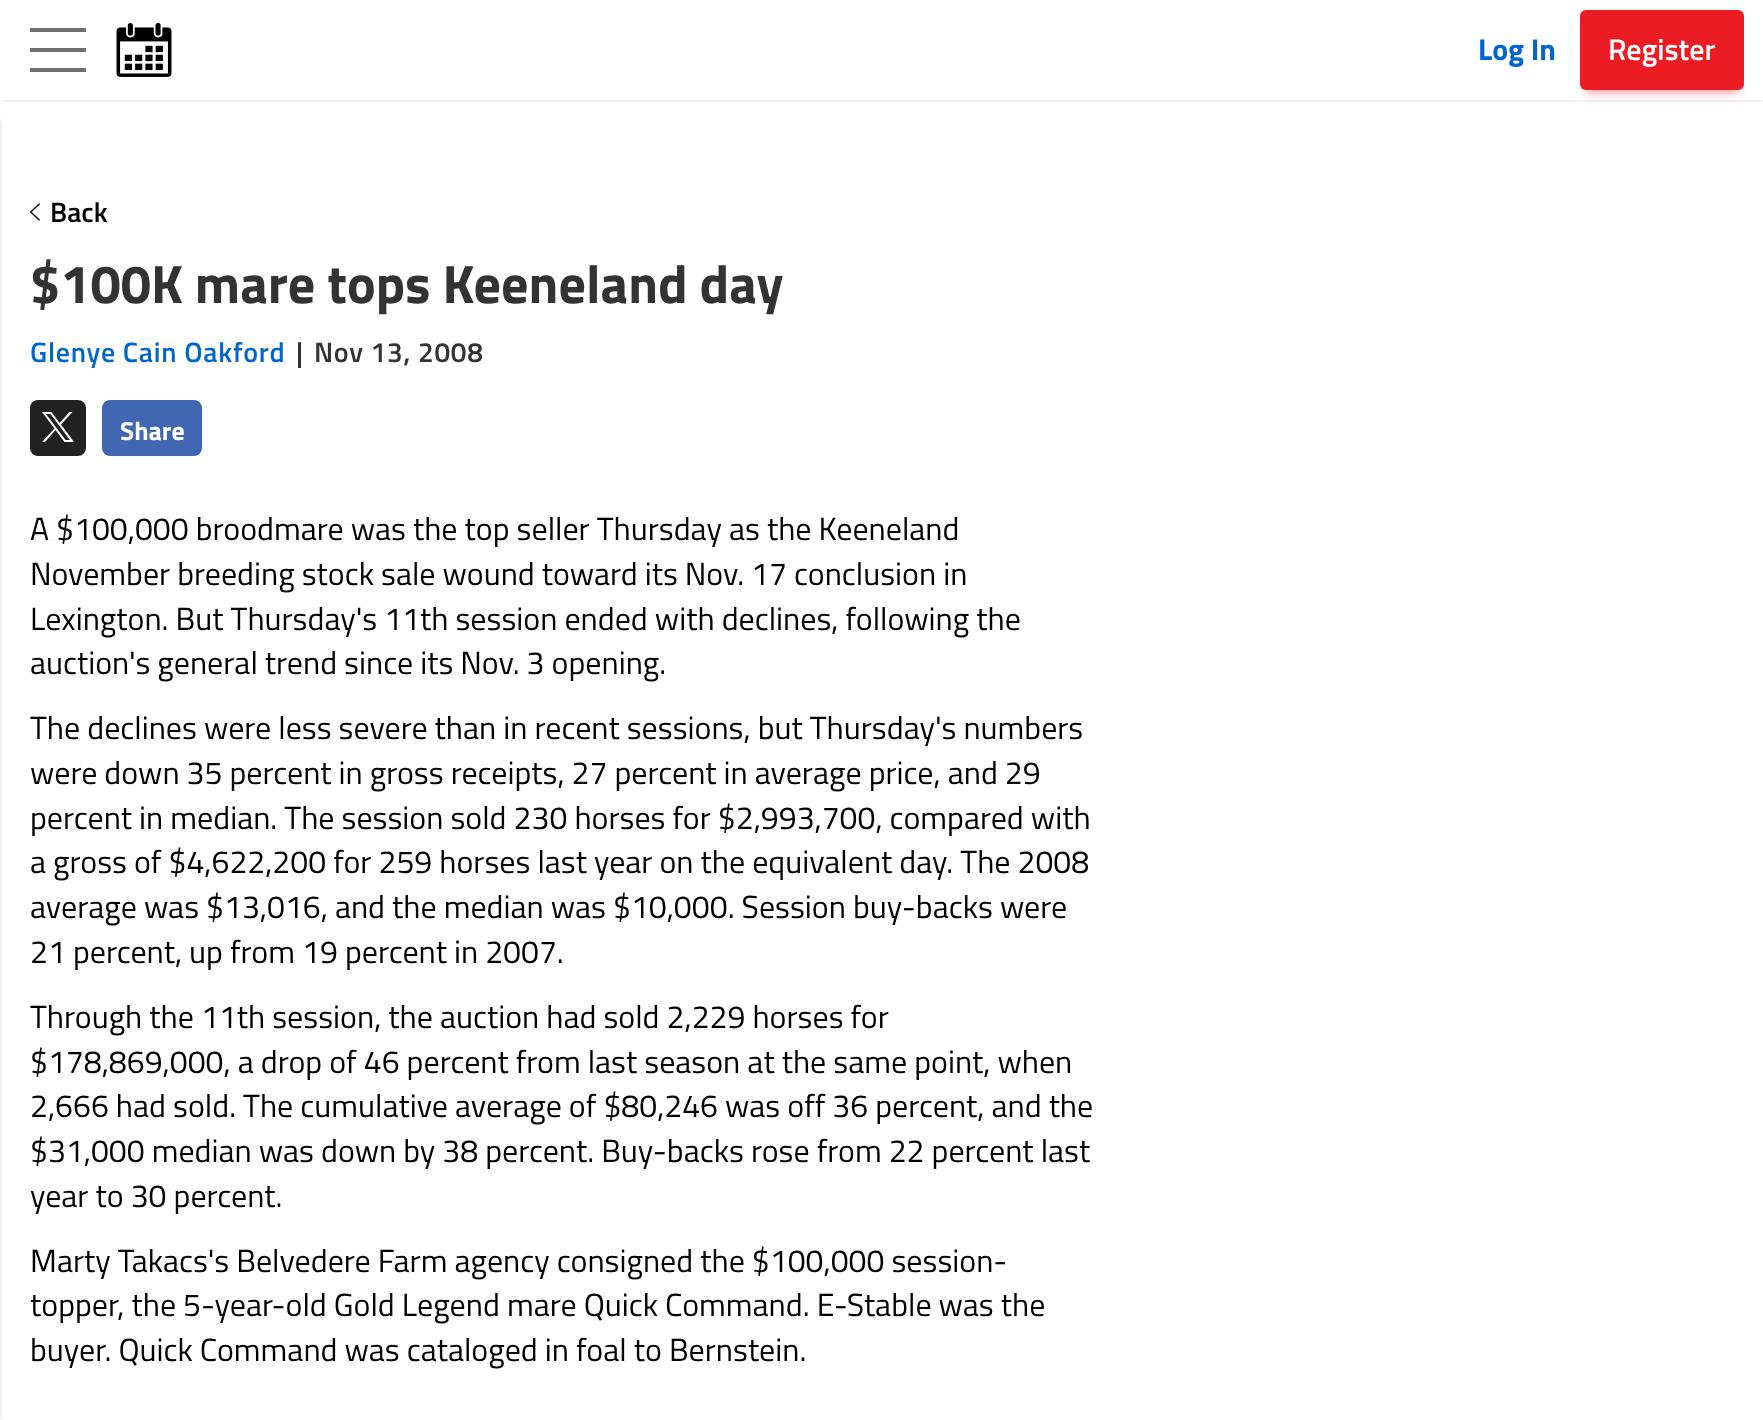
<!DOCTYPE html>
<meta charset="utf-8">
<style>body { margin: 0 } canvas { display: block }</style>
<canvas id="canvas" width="1763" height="1420"></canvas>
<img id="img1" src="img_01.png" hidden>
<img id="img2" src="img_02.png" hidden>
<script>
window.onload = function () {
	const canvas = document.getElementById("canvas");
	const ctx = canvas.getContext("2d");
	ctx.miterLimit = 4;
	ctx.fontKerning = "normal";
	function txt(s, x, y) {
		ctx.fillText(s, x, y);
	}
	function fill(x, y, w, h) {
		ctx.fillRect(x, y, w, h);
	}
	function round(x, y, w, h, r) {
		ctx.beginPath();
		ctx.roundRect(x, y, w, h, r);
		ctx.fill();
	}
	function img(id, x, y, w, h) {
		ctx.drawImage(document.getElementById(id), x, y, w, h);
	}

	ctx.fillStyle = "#FFFFFF";
	fill(0, 0, 1763, 1420);
	ctx.save();
	ctx.beginPath();
	ctx.rect(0, 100, 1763, 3);
	ctx.clip();
	ctx.fillStyle = "rgba(0, 0, 0, 0.16)";
	ctx.filter = "blur(3px)";
	ctx.beginPath();
	ctx.rect(0, 0, 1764, 100);
	ctx.fill();
	ctx.filter = "none";
	ctx.restore();
	ctx.fillStyle = "#707070";
	fill(30, 48, 56, 4);
	fill(30, 28, 56, 4);
	fill(30, 68, 56, 4);
	img("img1", 116, 23, 56, 54);
	ctx.fillStyle = "rgba(236, 28, 36, 0.5)";
	ctx.filter = "blur(4px)";
	ctx.beginPath();
	ctx.rect(1586, 24, 152, 68);
	ctx.fill();
	ctx.filter = "none";
	ctx.fillStyle = "#EC1C24";
	round(1580, 10, 164, 80, 6);
	ctx.fillStyle = "rgba(0, 0, 0, 0.16)";
	ctx.filter = "blur(2px)";
	ctx.beginPath();
	ctx.rect(-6, 120, 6, 1300);
	ctx.fill();
	ctx.filter = "none";
	img("img2", 30, 203, 10, 18);
	ctx.fillStyle = "#222222";
	round(30, 400, 56, 56, 8);
	ctx.fillStyle = "#FFFFFF";
	ctx.beginPath();
	ctx.moveTo(42, 412);
	ctx.lineTo(54.5, 428.5);
	ctx.lineTo(42, 442);
	ctx.lineTo(45, 442);
	ctx.lineTo(55.5, 430);
	ctx.lineTo(64.5, 442);
	ctx.lineTo(74, 442);
	ctx.lineTo(61, 424.5);
	ctx.lineTo(72.5, 412);
	ctx.lineTo(69.5, 412);
	ctx.lineTo(59.5, 423);
	ctx.lineTo(51.5, 412);
	ctx.closePath();
	ctx.moveTo(46, 414);
	ctx.lineTo(50.5, 414);
	ctx.lineTo(70, 440);
	ctx.lineTo(65.5, 440);
	ctx.closePath();
	ctx.fill();
	ctx.fillStyle = "#4267B2";
	ctx.beginPath();
	ctx.roundRect(103, 401, 98, 54, 7);
	ctx.fill();
	ctx.strokeStyle = "#4267B2";
	ctx.lineWidth = 2;
	ctx.stroke();
	ctx.font = "bold 30px Titillium Web";
	ctx.fillStyle = "#0066CC";
	txt("Log In", 1478, 60);
	ctx.font = "600 30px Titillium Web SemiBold";
	ctx.fillStyle = "#FFFFFF";
	txt("Register", 1608, 60);
	ctx.font = "600 28px Titillium Web SemiBold";
	ctx.fillStyle = "#000000";
	txt("Back", 50, 222);
	ctx.font = "bold 54px Titillium Web";
	ctx.fillStyle = "#333333";
	txt("$100K mare tops Keeneland day", 30, 303);
	ctx.letterSpacing = "0.75px";
	ctx.font = "600 28px Titillium Web SemiBold";
	ctx.fillStyle = "#0066CC";
	txt("Glenye Cain Oakford", 30, 362);
	ctx.fillStyle = "#333333";
	txt("|", 296, 362);
	txt("Nov 13, 2008", 314, 362);
	ctx.letterSpacing = "0px";
	ctx.font = "bold 26px Titillium Web";
	ctx.fillStyle = "#FFFFFF";
	txt("Share", 120, 440);
	ctx.font = "32px Titillium Web";
	ctx.fillStyle = "#000000";
	txt("A $100,000 broodmare was the top seller Thursday as the Keeneland", 30, 540);
	txt("November breeding stock sale wound toward its Nov. 17 conclusion in", 30, 585);
	txt("Lexington. But Thursday's 11th session ended with declines, following the", 30, 630);
	txt("auction's general trend since its Nov. 3 opening.", 30, 674);
	txt("The declines were less severe than in recent sessions, but Thursday's numbers", 30, 739);
	txt("were down 35 percent in gross receipts, 27 percent in average price, and 29", 30, 784);
	txt("percent in median. The session sold 230 horses for $2,993,700, compared with", 30, 829);
	txt("a gross of $4,622,200 for 259 horses last year on the equivalent day. The 2008", 30, 873);
	txt("average was $13,016, and the median was $10,000. Session buy-backs were", 30, 918);
	txt("21 percent, up from 19 percent in 2007.", 30, 963);
	txt("Through the 11th session, the auction had sold 2,229 horses for", 30, 1028);
	txt("$178,869,000, a drop of 46 percent from last season at the same point, when", 30, 1073);
	txt("2,666 had sold. The cumulative average of $80,246 was off 36 percent, and the", 30, 1117);
	txt("$31,000 median was down by 38 percent. Buy-backs rose from 22 percent last", 30, 1162);
	txt("year to 30 percent.", 30, 1207);
	txt("Marty Takacs's Belvedere Farm agency consigned the $100,000 session-", 30, 1272);
	txt("topper, the 5-year-old Gold Legend mare Quick Command. E-Stable was the", 30, 1316);
	txt("buyer. Quick Command was cataloged in foal to Bernstein.", 30, 1361);
};
</script>
